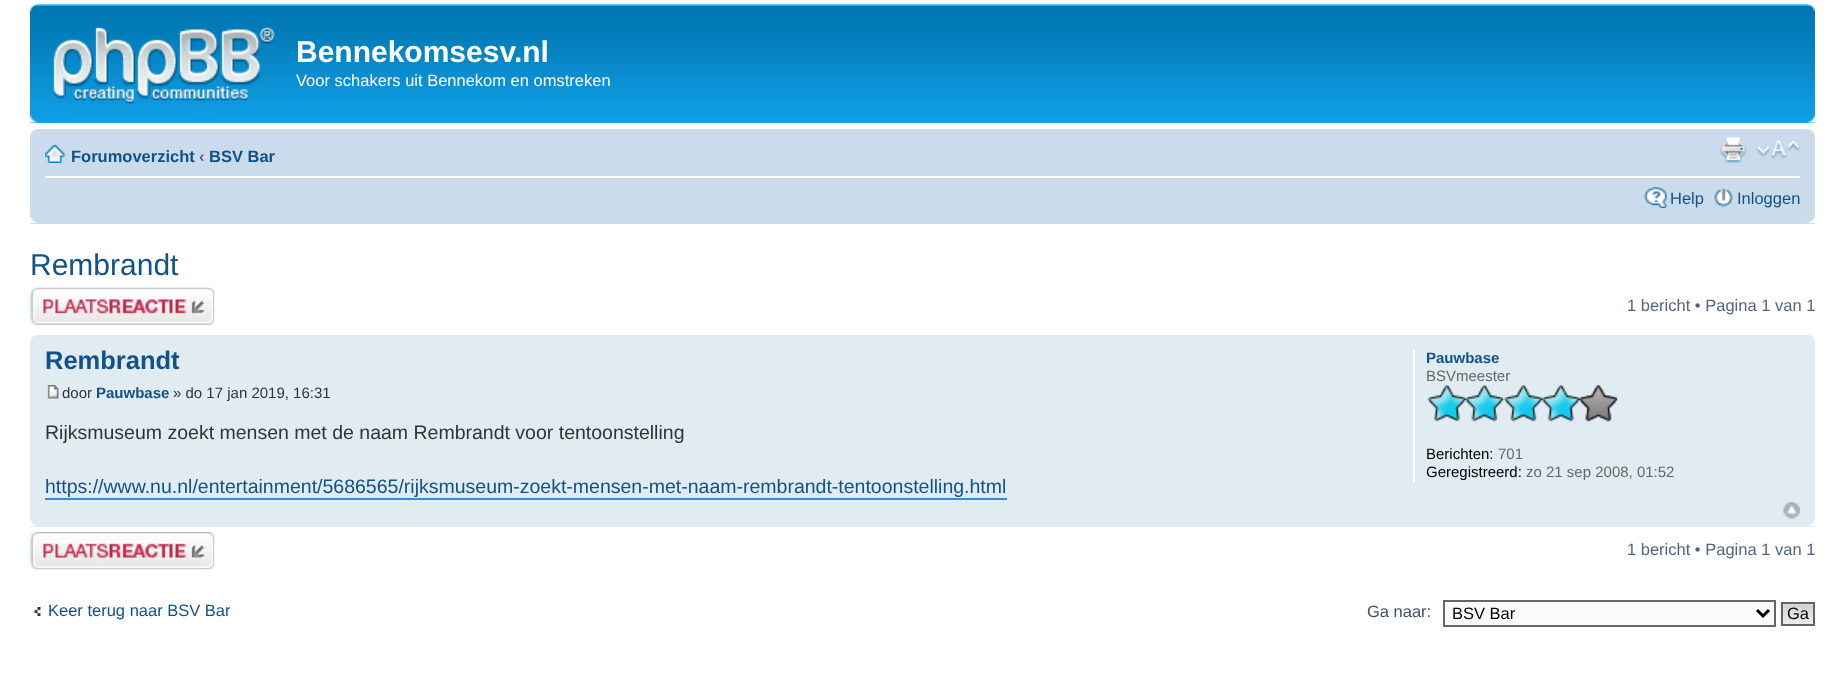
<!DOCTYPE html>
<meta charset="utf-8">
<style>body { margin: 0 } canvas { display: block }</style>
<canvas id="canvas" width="1844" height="673"></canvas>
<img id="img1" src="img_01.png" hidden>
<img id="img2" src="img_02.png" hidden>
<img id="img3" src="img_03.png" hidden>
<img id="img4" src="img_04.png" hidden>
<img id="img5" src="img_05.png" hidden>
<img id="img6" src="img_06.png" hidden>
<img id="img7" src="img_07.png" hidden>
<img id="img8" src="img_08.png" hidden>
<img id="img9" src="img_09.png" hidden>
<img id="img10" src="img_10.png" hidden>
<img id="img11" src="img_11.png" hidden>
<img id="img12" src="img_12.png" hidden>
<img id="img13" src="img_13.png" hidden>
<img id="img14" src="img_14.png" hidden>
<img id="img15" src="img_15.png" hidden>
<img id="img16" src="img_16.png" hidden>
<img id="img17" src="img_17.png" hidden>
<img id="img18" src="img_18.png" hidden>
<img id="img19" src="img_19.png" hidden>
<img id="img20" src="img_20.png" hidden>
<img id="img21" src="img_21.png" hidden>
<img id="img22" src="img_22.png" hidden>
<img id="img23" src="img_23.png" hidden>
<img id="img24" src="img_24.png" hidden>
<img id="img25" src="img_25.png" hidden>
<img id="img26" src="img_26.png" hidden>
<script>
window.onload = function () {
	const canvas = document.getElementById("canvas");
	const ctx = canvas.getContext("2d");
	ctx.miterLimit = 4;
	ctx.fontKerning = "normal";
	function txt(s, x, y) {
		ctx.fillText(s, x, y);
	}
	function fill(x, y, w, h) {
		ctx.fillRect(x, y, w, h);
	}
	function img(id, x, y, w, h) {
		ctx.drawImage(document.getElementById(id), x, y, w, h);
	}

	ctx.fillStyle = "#FFFFFF";
	fill(0, 0, 1844, 673);
	ctx.fillStyle = "#12A3EB";
	fill(30, 122, 1785, 1);
	img("img1", 30, 4, 1785, 118);
	img("img2", 30, 4, 8, 8);
	img("img3", 1807, 4, 8, 8);
	img("img4", 53, 27, 222, 77);
	img("img5", 30, 115, 8, 8);
	img("img6", 1807, 115, 8, 8);
	ctx.fillStyle = "#CADCEB";
	fill(30, 129, 1785, 95);
	img("img7", 30, 129, 8, 7);
	img("img8", 1807, 129, 8, 7);
	ctx.fillStyle = "#FFFFFF";
	fill(45, 176, 1755, 2);
	img("img9", 45, 145, 20, 18);
	img("img10", 1720, 137, 27, 26);
	img("img11", 1756, 140, 44, 19);
	img("img12", 1644, 187, 24, 21);
	img("img13", 1714, 188, 19, 19);
	img("img14", 30, 215, 8, 8);
	img("img15", 1807, 215, 8, 8);
	img("img16", 30, 287, 185, 38);
	ctx.fillStyle = "#E1EBF2";
	fill(30, 335, 1785, 192);
	img("img17", 30, 335, 7, 6);
	img("img18", 1808, 335, 7, 6);
	img("img19", 47, 385, 12, 14);
	ctx.fillStyle = "#368AD2";
	fill(45, 498, 962, 2);
	ctx.fillStyle = "#FFFFFF";
	fill(1413, 350, 2, 132);
	img("img20", 1427, 385, 191, 37);
	img("img21", 1783, 502, 17, 17);
	img("img22", 30, 519, 7, 7);
	img("img23", 1808, 519, 7, 7);
	img("img24", 30, 532, 185, 38);
	img("img25", 34, 607, 7, 9);
	ctx.fillStyle = "#FAFAFA";
	ctx.beginPath();
	ctx.rect(1444, 601, 331, 25);
	ctx.fill();
	ctx.strokeStyle = "#666666";
	ctx.lineWidth = 2;
	ctx.stroke();
	ctx.beginPath();
	ctx.moveTo(1757, 610);
	ctx.lineTo(1763, 616);
	ctx.lineTo(1769, 610);
	ctx.strokeStyle = "#000000";
	ctx.lineWidth = 3;
	ctx.stroke();
	img("img26", 1780, 603, 33, 22);
	ctx.strokeStyle = "#666666";
	ctx.lineWidth = 2;
	ctx.strokeRect(1782, 603, 32, 22);
	ctx.font = "bold 30px Liberation Sans";
	ctx.fillStyle = "#FFFFFF";
	txt("Bennekomsesv.nl", 296, 62);
	ctx.font = "16.5px Liberation Sans";
	txt("Voor schakers uit Bennekom en omstreken", 296, 86);
	ctx.font = "bold 16.5px Liberation Sans";
	ctx.fillStyle = "#105289";
	txt("Forumoverzicht", 71, 162);
	ctx.fillStyle = "#536482";
	txt("‹", 199, 162);
	ctx.fillStyle = "#105289";
	txt("BSV Bar", 209, 162);
	ctx.font = "16.5px Liberation Sans";
	txt("Help", 1670, 204);
	txt("Inloggen", 1737, 204);
	ctx.font = "30px Liberation Sans";
	txt("Rembrandt", 30, 275);
	ctx.font = "16.5px Liberation Sans";
	ctx.fillStyle = "#536482";
	txt("1 bericht • Pagina 1 van 1", 1627, 311);
	ctx.font = "bold 25.5px Liberation Sans";
	ctx.fillStyle = "#105289";
	txt("Rembrandt", 45, 369);
	ctx.font = "15px Liberation Sans";
	ctx.fillStyle = "#333333";
	txt("door", 62, 398);
	ctx.font = "bold 15px Liberation Sans";
	ctx.fillStyle = "#105289";
	txt("Pauwbase", 96, 398);
	ctx.font = "15px Liberation Sans";
	ctx.fillStyle = "#333333";
	txt("» do 17 jan 2019, 16:31", 173, 398);
	ctx.font = "19.5px Liberation Sans";
	txt("Rijksmuseum zoekt mensen met de naam Rembrandt voor tentoonstelling", 45, 439);
	ctx.fillStyle = "#105289";
	txt("https://www.nu.nl/entertainment/5686565/rijksmuseum-zoekt-mensen-met-naam-rembrandt-tentoonstelling.html", 45, 493);
	ctx.font = "bold 15px Liberation Sans";
	txt("Pauwbase", 1426, 363);
	ctx.font = "15px Liberation Sans";
	ctx.fillStyle = "#666666";
	txt("BSVmeester", 1426, 381);
	ctx.fillStyle = "#000000";
	txt("Berichten:", 1426, 459);
	ctx.fillStyle = "#666666";
	txt("701", 1498, 459);
	ctx.fillStyle = "#000000";
	txt("Geregistreerd:", 1426, 477);
	ctx.fillStyle = "#666666";
	txt("zo 21 sep 2008, 01:52", 1526, 477);
	ctx.font = "16.5px Liberation Sans";
	ctx.fillStyle = "#536482";
	txt("1 bericht • Pagina 1 van 1", 1627, 555);
	ctx.fillStyle = "#105289";
	txt("Keer terug naar BSV Bar", 48, 616);
	ctx.fillStyle = "#425067";
	txt("Ga naar:", 1367, 617);
	ctx.fillStyle = "#000000";
	txt("BSV Bar", 1452, 619);
	txt("Ga", 1787, 619);
};
</script>
